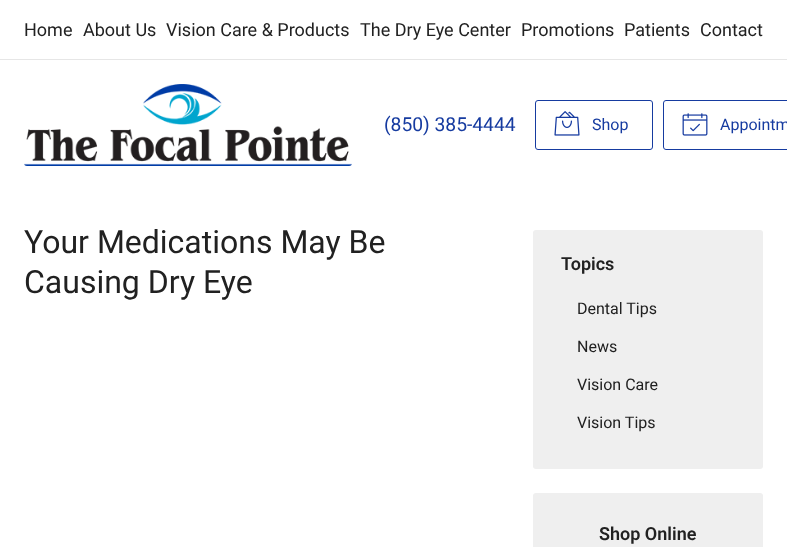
<!DOCTYPE html>
<meta charset="utf-8">
<style>body { margin: 0 } canvas { display: block }</style>
<canvas id="canvas" width="787" height="547"></canvas>
<img id="img1" src="img_01.png" hidden>
<img id="img2" src="img_02.png" hidden>
<img id="img3" src="img_03.png" hidden>
<script>
window.onload = function () {
	const canvas = document.getElementById("canvas");
	const ctx = canvas.getContext("2d");
	ctx.miterLimit = 4;
	ctx.fontKerning = "normal";
	function txt(s, x, y) {
		ctx.fillText(s, x, y);
	}
	function fill(x, y, w, h) {
		ctx.fillRect(x, y, w, h);
	}
	function round(x, y, w, h, r) {
		ctx.beginPath();
		ctx.roundRect(x, y, w, h, r);
		ctx.fill();
	}
	function img(id, x, y, w, h) {
		ctx.drawImage(document.getElementById(id), x, y, w, h);
	}

	ctx.fillStyle = "#FFFFFF";
	fill(0, 0, 787, 547);
	ctx.fillStyle = "#E6E6E6";
	fill(0, 59, 787, 1);
	img("img1", 24, 84, 328, 82);
	ctx.beginPath();
	ctx.roundRect(535.5, 100.5, 117, 49, 2.5);
	ctx.strokeStyle = "#163BA0";
	ctx.stroke();
	img("img2", 554, 111, 26, 25);
	ctx.beginPath();
	ctx.roundRect(663.5, 100.5, 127, 49, 2.5);
	ctx.stroke();
	img("img3", 682, 113, 26, 23);
	ctx.fillStyle = "#EFEFEF";
	round(533, 230, 230, 239, 3);
	round(533, 493, 230, 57, 3);
	ctx.font = "18px Roboto";
	ctx.fillStyle = "#212121";
	txt("Home", 24, 36);
	txt("About Us", 83, 36);
	txt("Vision Care & Products", 166, 36);
	txt("The Dry Eye Center", 360, 36);
	txt("Promotions", 521, 36);
	txt("Patients", 624, 36);
	txt("Contact", 700, 36);
	ctx.font = "19.25px Roboto";
	ctx.fillStyle = "#163BA0";
	txt("(850) 385-4444", 384, 131);
	ctx.font = "16px Roboto";
	txt("Shop", 592, 130);
	txt("Appointm", 720, 130);
	ctx.font = "32px Roboto";
	ctx.fillStyle = "#212121";
	txt("Your Medications May Be", 24, 253);
	txt("Causing Dry Eye", 24, 293);
	ctx.font = "600 18px Roboto";
	txt("Topics", 561, 270);
	ctx.font = "16px Roboto";
	txt("Dental Tips", 577, 314);
	txt("News", 577, 352);
	txt("Vision Care", 577, 390);
	txt("Vision Tips", 577, 428);
	ctx.font = "600 18px Roboto";
	txt("Shop Online", 599, 540);
};
</script>
